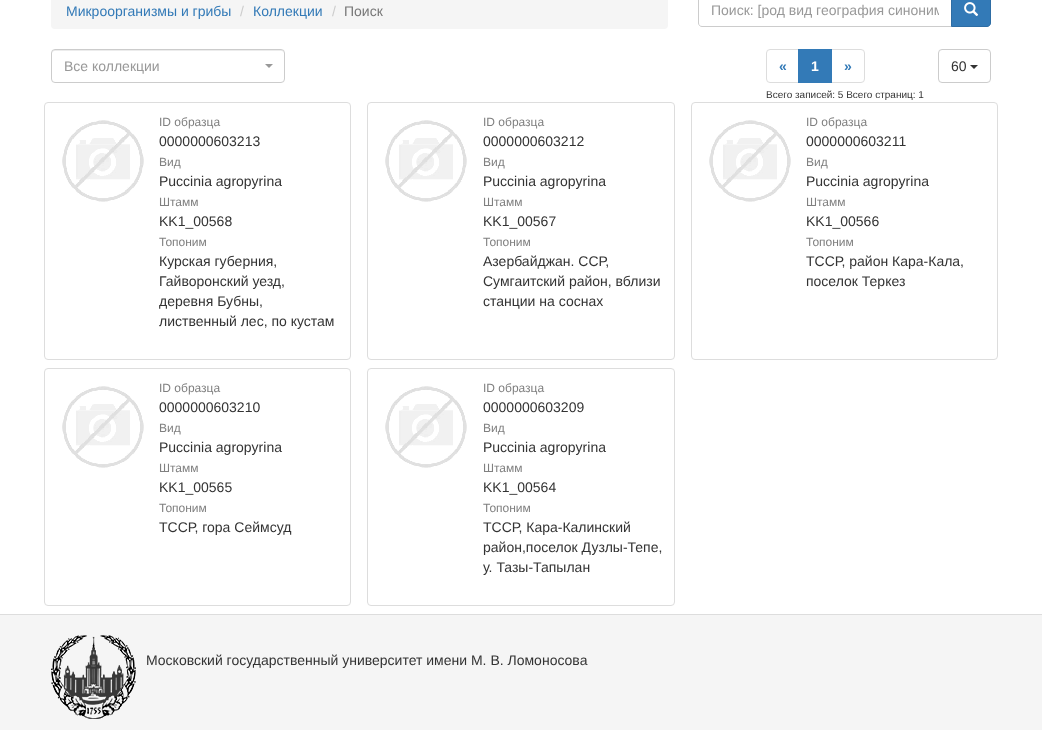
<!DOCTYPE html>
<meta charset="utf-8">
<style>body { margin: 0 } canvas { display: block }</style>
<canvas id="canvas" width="1042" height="730"></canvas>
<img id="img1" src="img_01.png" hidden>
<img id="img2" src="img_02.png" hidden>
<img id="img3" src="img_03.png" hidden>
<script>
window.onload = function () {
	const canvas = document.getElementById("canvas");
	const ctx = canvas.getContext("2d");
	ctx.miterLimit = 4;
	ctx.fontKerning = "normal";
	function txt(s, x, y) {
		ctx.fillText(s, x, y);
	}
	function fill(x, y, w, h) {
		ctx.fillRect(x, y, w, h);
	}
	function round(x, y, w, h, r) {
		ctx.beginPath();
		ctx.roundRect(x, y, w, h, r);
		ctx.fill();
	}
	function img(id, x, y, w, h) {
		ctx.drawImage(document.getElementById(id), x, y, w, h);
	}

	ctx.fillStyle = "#FFFFFF";
	fill(0, 0, 1042, 730);
	ctx.fillStyle = "#F5F5F5";
	round(51, -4, 617, 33, 4);
	ctx.beginPath();
	ctx.moveTo(702, -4.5);
	ctx.lineTo(951.5, -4.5);
	ctx.lineTo(951.5, 26.5);
	ctx.lineTo(702, 26.5);
	ctx.bezierCurveTo(700, 26.5, 698.5, 25, 698.5, 23);
	ctx.lineTo(698.5, -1);
	ctx.bezierCurveTo(698.5, -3, 700, -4.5, 702, -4.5);
	ctx.closePath();
	ctx.strokeStyle = "#CCCCCC";
	ctx.stroke();
	ctx.fillStyle = "#337AB7";
	ctx.beginPath();
	ctx.moveTo(951.5, -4.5);
	ctx.lineTo(987, -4.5);
	ctx.bezierCurveTo(989, -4.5, 990.5, -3, 990.5, -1);
	ctx.lineTo(990.5, 23);
	ctx.bezierCurveTo(990.5, 25, 989, 26.5, 987, 26.5);
	ctx.lineTo(951.5, 26.5);
	ctx.closePath();
	ctx.fill();
	ctx.strokeStyle = "#2E6DA4";
	ctx.stroke();
	img("img1", 964, 2, 15, 14);
	ctx.fillStyle = "#ECECEC";
	ctx.beginPath();
	ctx.moveTo(55, 51);
	ctx.lineTo(281, 51);
	ctx.bezierCurveTo(283, 51, 284, 52, 284, 54);
	ctx.bezierCurveTo(284, 52, 283, 50, 281, 50);
	ctx.lineTo(55, 50);
	ctx.bezierCurveTo(53, 50, 52, 52, 52, 54);
	ctx.bezierCurveTo(52, 52, 53, 51, 55, 51);
	ctx.closePath();
	ctx.fill();
	ctx.beginPath();
	ctx.roundRect(51.5, 49.5, 233, 33, 3.5);
	ctx.strokeStyle = "#CCCCCC";
	ctx.stroke();
	ctx.fillStyle = "#999999";
	ctx.beginPath();
	ctx.moveTo(265, 64);
	ctx.lineTo(273, 64);
	ctx.lineTo(269, 68);
	ctx.closePath();
	ctx.fill();
	ctx.beginPath();
	ctx.roundRect(766.5, 49.5, 32, 33, [3.5, 0, 0, 3.5]);
	ctx.strokeStyle = "#DDDDDD";
	ctx.stroke();
	ctx.beginPath();
	ctx.roundRect(831.5, 49.5, 33, 33, [0, 3.5, 3.5, 0]);
	ctx.stroke();
	ctx.fillStyle = "#337AB7";
	fill(798, 49, 34, 34);
	ctx.beginPath();
	ctx.roundRect(938.5, 49.5, 52, 33, 3.5);
	ctx.strokeStyle = "#CCCCCC";
	ctx.stroke();
	ctx.fillStyle = "#333333";
	ctx.beginPath();
	ctx.moveTo(970, 65);
	ctx.lineTo(978, 65);
	ctx.lineTo(974, 69);
	ctx.closePath();
	ctx.fill();
	ctx.beginPath();
	ctx.roundRect(44.5, 102.5, 306, 257, 3.5);
	ctx.strokeStyle = "#DDDDDD";
	ctx.stroke();
	img("img2", 62, 120, 82, 82);
	ctx.beginPath();
	ctx.roundRect(367.5, 102.5, 307, 257, 3.5);
	ctx.stroke();
	img("img2", 385, 120, 82, 82);
	ctx.beginPath();
	ctx.roundRect(691.5, 102.5, 306, 257, 3.5);
	ctx.stroke();
	img("img2", 709, 120, 82, 82);
	ctx.beginPath();
	ctx.roundRect(44.5, 368.5, 306, 237, 3.5);
	ctx.stroke();
	img("img2", 62, 386, 82, 82);
	ctx.beginPath();
	ctx.roundRect(367.5, 368.5, 307, 237, 3.5);
	ctx.stroke();
	img("img2", 385, 386, 82, 82);
	ctx.fillStyle = "#F5F5F5";
	fill(0, 615, 1042, 115);
	ctx.fillStyle = "#DDDDDD";
	fill(0, 614, 1042, 1);
	img("img3", 51, 635, 85, 84);
	ctx.font = "14px Liberation Sans";
	ctx.fillStyle = "#337AB7";
	txt("Микроорганизмы и грибы", 66, 16);
	ctx.fillStyle = "#CCCCCC";
	txt("/", 240, 16);
	ctx.fillStyle = "#337AB7";
	txt("Коллекции", 253, 16);
	ctx.fillStyle = "#CCCCCC";
	txt("/", 332, 16);
	ctx.fillStyle = "#777777";
	txt("Поиск", 344, 16);
	ctx.save();
	ctx.beginPath();
	ctx.rect(711, 2, 228, 16);
	ctx.clip();
	ctx.fillStyle = "#999999";
	txt("Поиск: [род вид география синоним", 711, 15);
	ctx.restore();
	ctx.fillStyle = "#999999";
	txt("Все коллекции", 64, 71);
	ctx.font = "bold 14px Liberation Sans";
	ctx.fillStyle = "#337AB7";
	txt("«", 779, 71);
	ctx.fillStyle = "#FFFFFF";
	txt("1", 811, 71);
	ctx.fillStyle = "#337AB7";
	txt("»", 844, 71);
	ctx.font = "10px Liberation Sans";
	ctx.fillStyle = "#333333";
	txt("Всего записей: 5 Всего страниц: 1", 766, 98);
	ctx.font = "14px Liberation Sans";
	txt("60", 951, 71);
	ctx.font = "12px Liberation Sans";
	ctx.fillStyle = "#808080";
	txt("ID образца", 159, 126);
	ctx.font = "14px Liberation Sans";
	ctx.fillStyle = "#333333";
	txt("0000000603213", 159, 146);
	ctx.font = "12px Liberation Sans";
	ctx.fillStyle = "#808080";
	txt("Вид", 159, 166);
	ctx.font = "14px Liberation Sans";
	ctx.fillStyle = "#333333";
	txt("Puccinia agropyrina", 159, 186);
	ctx.font = "12px Liberation Sans";
	ctx.fillStyle = "#808080";
	txt("Штамм", 159, 206);
	ctx.font = "14px Liberation Sans";
	ctx.fillStyle = "#333333";
	txt("KK1_00568", 159, 226);
	ctx.font = "12px Liberation Sans";
	ctx.fillStyle = "#808080";
	txt("Топоним", 159, 246);
	ctx.font = "14px Liberation Sans";
	ctx.fillStyle = "#333333";
	txt("Курская губерния,", 159, 266);
	txt("Гайворонский уезд,", 159, 286);
	txt("деревня Бубны,", 159, 306);
	txt("лиственный лес, по кустам", 159, 326);
	ctx.font = "12px Liberation Sans";
	ctx.fillStyle = "#808080";
	txt("ID образца", 483, 126);
	ctx.font = "14px Liberation Sans";
	ctx.fillStyle = "#333333";
	txt("0000000603212", 483, 146);
	ctx.font = "12px Liberation Sans";
	ctx.fillStyle = "#808080";
	txt("Вид", 483, 166);
	ctx.font = "14px Liberation Sans";
	ctx.fillStyle = "#333333";
	txt("Puccinia agropyrina", 483, 186);
	ctx.font = "12px Liberation Sans";
	ctx.fillStyle = "#808080";
	txt("Штамм", 483, 206);
	ctx.font = "14px Liberation Sans";
	ctx.fillStyle = "#333333";
	txt("KK1_00567", 483, 226);
	ctx.font = "12px Liberation Sans";
	ctx.fillStyle = "#808080";
	txt("Топоним", 483, 246);
	ctx.font = "14px Liberation Sans";
	ctx.fillStyle = "#333333";
	txt("Азербайджан. ССР,", 483, 266);
	txt("Сумгаитский район, вблизи", 483, 286);
	txt("станции на соснах", 483, 306);
	ctx.font = "12px Liberation Sans";
	ctx.fillStyle = "#808080";
	txt("ID образца", 806, 126);
	ctx.font = "14px Liberation Sans";
	ctx.fillStyle = "#333333";
	txt("0000000603211", 806, 146);
	ctx.font = "12px Liberation Sans";
	ctx.fillStyle = "#808080";
	txt("Вид", 806, 166);
	ctx.font = "14px Liberation Sans";
	ctx.fillStyle = "#333333";
	txt("Puccinia agropyrina", 806, 186);
	ctx.font = "12px Liberation Sans";
	ctx.fillStyle = "#808080";
	txt("Штамм", 806, 206);
	ctx.font = "14px Liberation Sans";
	ctx.fillStyle = "#333333";
	txt("KK1_00566", 806, 226);
	ctx.font = "12px Liberation Sans";
	ctx.fillStyle = "#808080";
	txt("Топоним", 806, 246);
	ctx.font = "14px Liberation Sans";
	ctx.fillStyle = "#333333";
	txt("ТССР, район Кара-Кала,", 806, 266);
	txt("поселок Теркез", 806, 286);
	ctx.font = "12px Liberation Sans";
	ctx.fillStyle = "#808080";
	txt("ID образца", 159, 392);
	ctx.font = "14px Liberation Sans";
	ctx.fillStyle = "#333333";
	txt("0000000603210", 159, 412);
	ctx.font = "12px Liberation Sans";
	ctx.fillStyle = "#808080";
	txt("Вид", 159, 432);
	ctx.font = "14px Liberation Sans";
	ctx.fillStyle = "#333333";
	txt("Puccinia agropyrina", 159, 452);
	ctx.font = "12px Liberation Sans";
	ctx.fillStyle = "#808080";
	txt("Штамм", 159, 472);
	ctx.font = "14px Liberation Sans";
	ctx.fillStyle = "#333333";
	txt("KK1_00565", 159, 492);
	ctx.font = "12px Liberation Sans";
	ctx.fillStyle = "#808080";
	txt("Топоним", 159, 512);
	ctx.font = "14px Liberation Sans";
	ctx.fillStyle = "#333333";
	txt("ТССР, гора Сеймсуд", 159, 532);
	ctx.font = "12px Liberation Sans";
	ctx.fillStyle = "#808080";
	txt("ID образца", 483, 392);
	ctx.font = "14px Liberation Sans";
	ctx.fillStyle = "#333333";
	txt("0000000603209", 483, 412);
	ctx.font = "12px Liberation Sans";
	ctx.fillStyle = "#808080";
	txt("Вид", 483, 432);
	ctx.font = "14px Liberation Sans";
	ctx.fillStyle = "#333333";
	txt("Puccinia agropyrina", 483, 452);
	ctx.font = "12px Liberation Sans";
	ctx.fillStyle = "#808080";
	txt("Штамм", 483, 472);
	ctx.font = "14px Liberation Sans";
	ctx.fillStyle = "#333333";
	txt("KK1_00564", 483, 492);
	ctx.font = "12px Liberation Sans";
	ctx.fillStyle = "#808080";
	txt("Топоним", 483, 512);
	ctx.font = "14px Liberation Sans";
	ctx.fillStyle = "#333333";
	txt("ТССР, Кара-Калинский", 483, 532);
	txt("район,поселок Дузлы-Тепе,", 483, 552);
	txt("у. Тазы-Тапылан", 483, 572);
	txt("Московский государственный университет имени М. В. Ломоносова", 146, 665);
};
</script>
